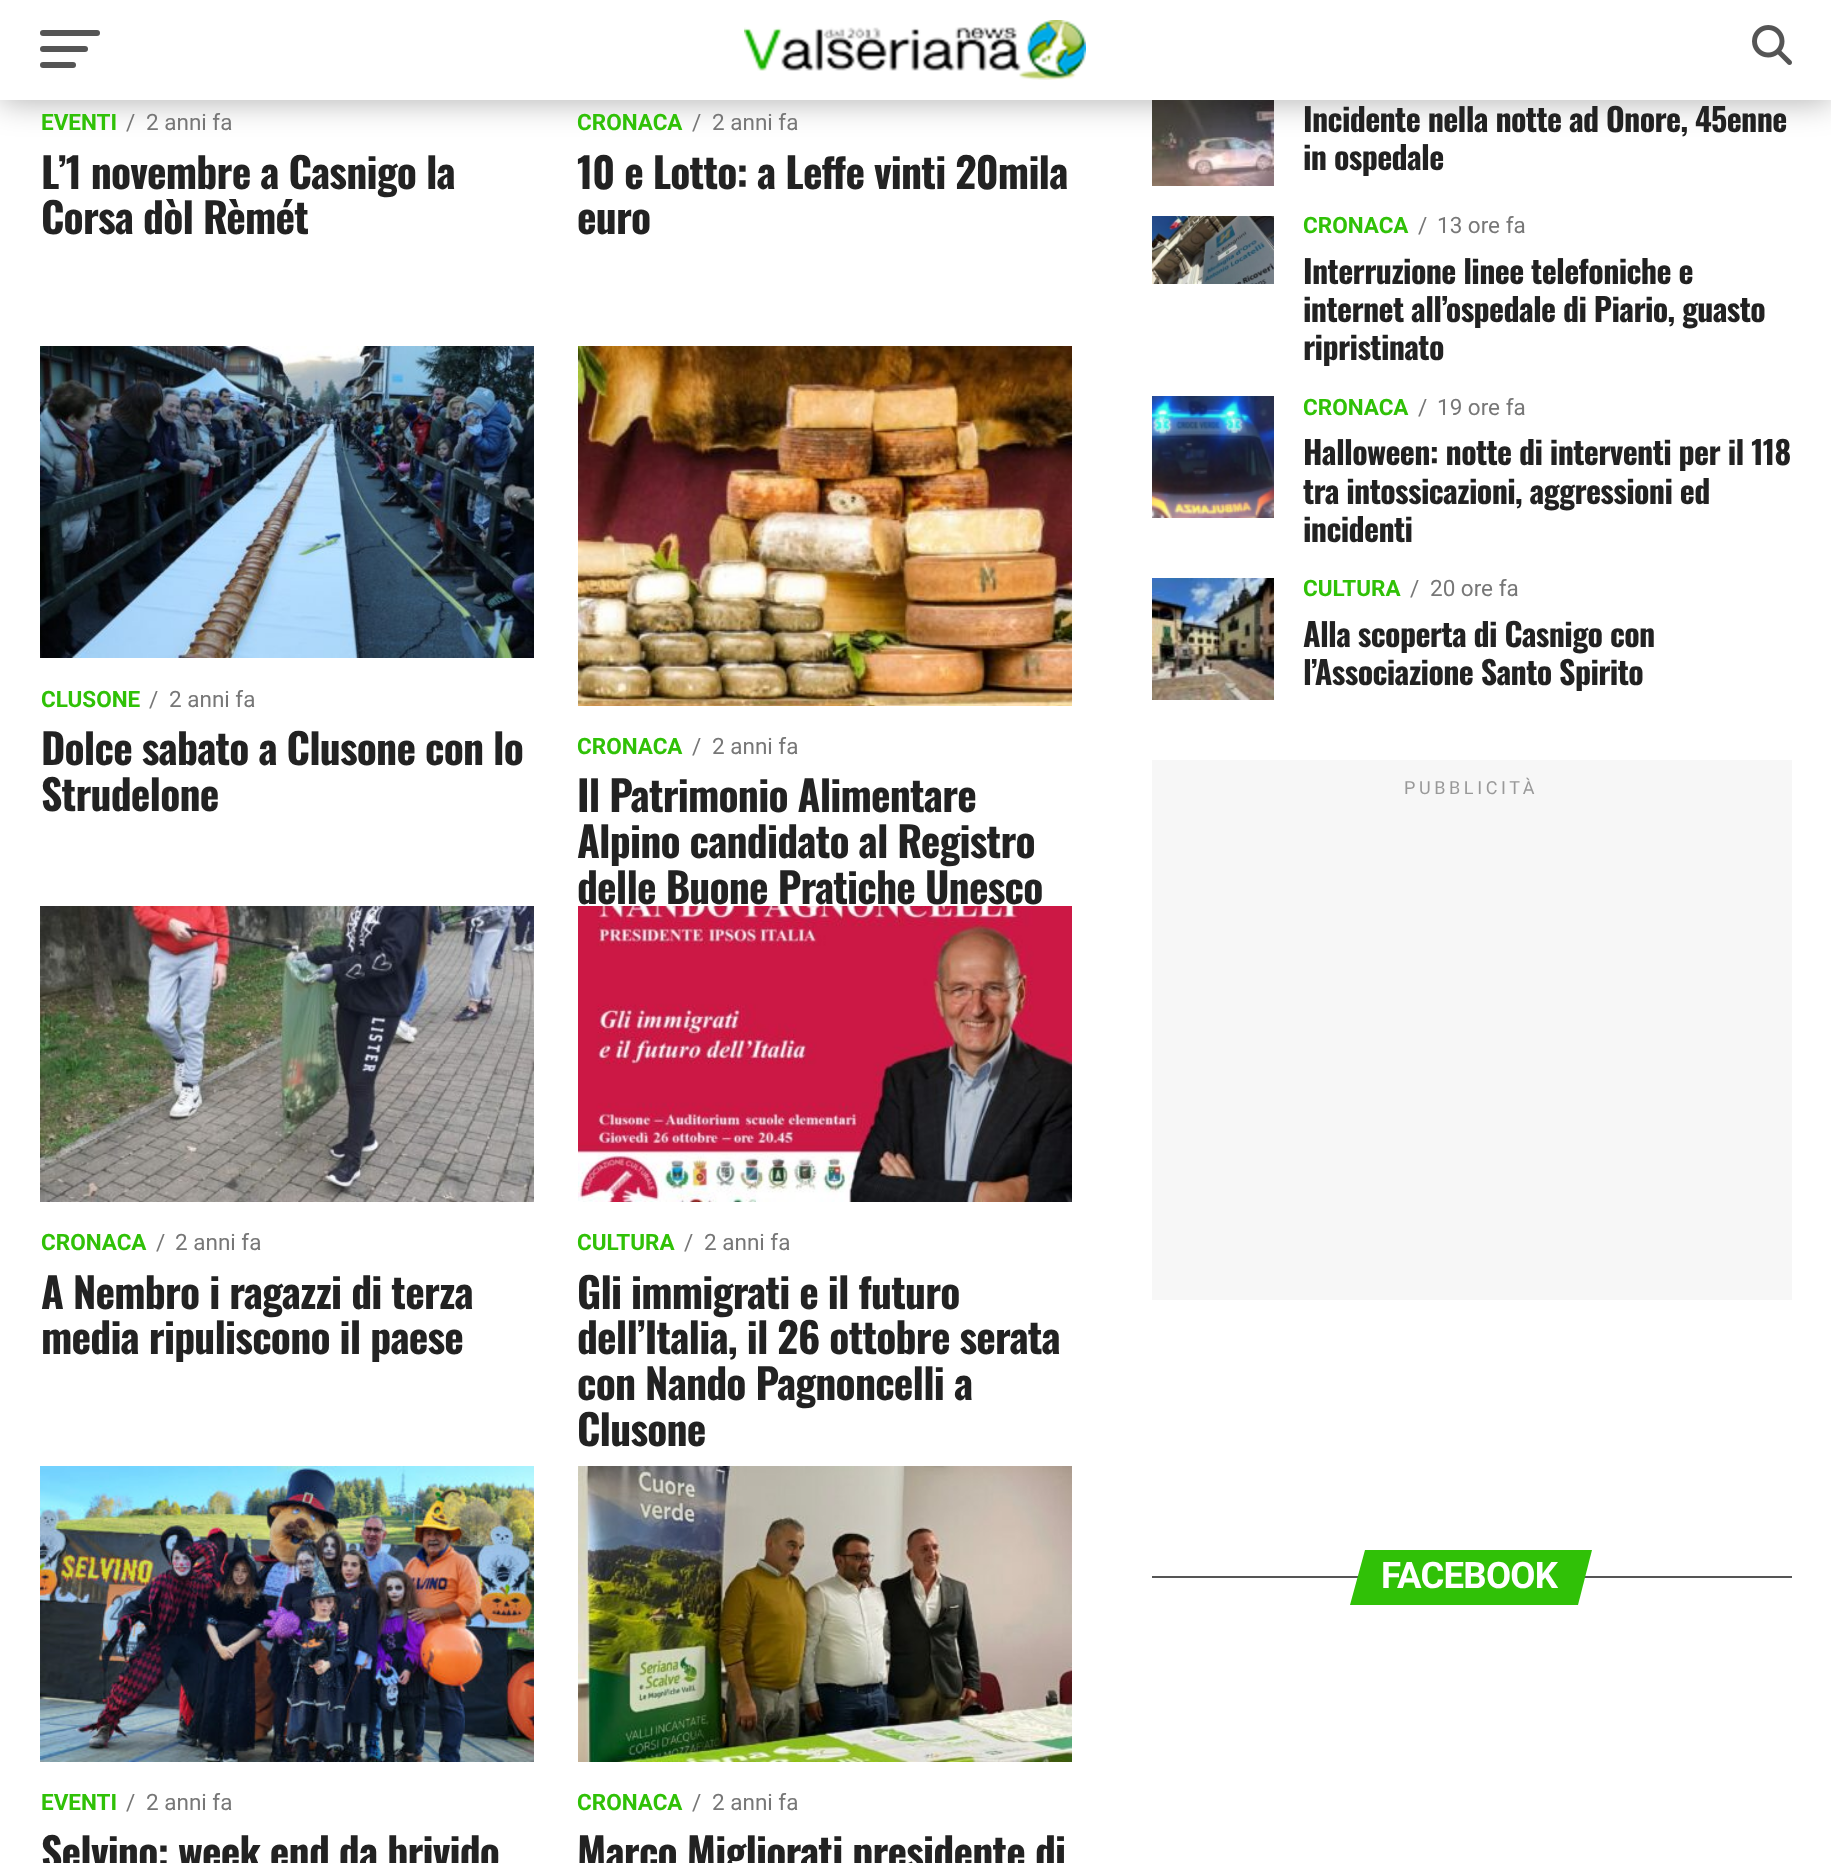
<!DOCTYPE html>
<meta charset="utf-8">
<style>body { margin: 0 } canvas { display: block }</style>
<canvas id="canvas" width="1831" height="1863"></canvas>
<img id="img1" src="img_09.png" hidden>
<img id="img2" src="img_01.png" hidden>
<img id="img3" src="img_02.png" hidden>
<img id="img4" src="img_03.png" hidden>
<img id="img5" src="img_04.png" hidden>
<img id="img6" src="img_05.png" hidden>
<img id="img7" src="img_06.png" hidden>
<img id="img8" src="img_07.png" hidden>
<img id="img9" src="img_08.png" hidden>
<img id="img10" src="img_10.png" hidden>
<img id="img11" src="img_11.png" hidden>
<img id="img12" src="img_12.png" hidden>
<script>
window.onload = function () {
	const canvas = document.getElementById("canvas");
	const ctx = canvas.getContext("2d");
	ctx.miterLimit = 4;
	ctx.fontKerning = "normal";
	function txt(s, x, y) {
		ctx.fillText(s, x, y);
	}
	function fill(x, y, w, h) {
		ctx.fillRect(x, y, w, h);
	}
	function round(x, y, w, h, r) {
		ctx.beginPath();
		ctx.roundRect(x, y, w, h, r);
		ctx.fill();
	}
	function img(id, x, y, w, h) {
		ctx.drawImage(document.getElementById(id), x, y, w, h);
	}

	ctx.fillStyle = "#FFFFFF";
	fill(0, 0, 1831, 1863);
	img("img1", 1152, 100, 122, 86);
	ctx.fillStyle = "rgba(0, 0, 0, 0.3)";
	ctx.filter = "blur(16px)";
	ctx.beginPath();
	ctx.rect(0, 2, 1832, 100);
	ctx.fill();
	ctx.filter = "none";
	ctx.fillStyle = "#FFFFFF";
	fill(0, 0, 1831, 100);
	ctx.fillStyle = "#555555";
	round(40, 30, 60, 6, 3);
	round(40, 46, 48, 6, 3);
	round(40, 62, 36, 6, 3);
	img("img2", 744, 20, 342, 60);
	img("img3", 1752, 25, 40, 40);
	img("img4", 40, 346, 494, 312);
	img("img5", 578, 346, 494, 360);
	img("img6", 40, 906, 494, 296);
	img("img7", 578, 906, 494, 296);
	img("img8", 40, 1466, 494, 296);
	img("img9", 578, 1466, 494, 296);
	img("img10", 1152, 216, 122, 68);
	img("img11", 1152, 396, 122, 122);
	img("img12", 1152, 578, 122, 122);
	ctx.fillStyle = "#F7F7F7";
	fill(1152, 760, 640, 540);
	ctx.fillStyle = "#555555";
	fill(1152, 1576, 640, 2);
	ctx.fillStyle = "#30C107";
	ctx.beginPath();
	ctx.moveTo(1365, 1550);
	ctx.lineTo(1592, 1550);
	ctx.lineTo(1578, 1605);
	ctx.lineTo(1350, 1605);
	ctx.closePath();
	ctx.fill();
	ctx.font = "bold 22.5px Roboto";
	txt("EVENTI", 41, 130);
	ctx.font = "22.5px Roboto";
	ctx.fillStyle = "#777777";
	txt("/", 126, 130);
	txt("2 anni fa", 146, 130);
	ctx.letterSpacing = "-0.8px";
	ctx.font = "bold 41.6px Oswald";
	ctx.fillStyle = "#222222";
	txt("L’1 novembre a Casnigo la", 41, 189);
	txt("Corsa dòl Rèmét", 41, 234);
	ctx.letterSpacing = "0px";
	ctx.font = "bold 22.5px Roboto";
	ctx.fillStyle = "#30C107";
	txt("CRONACA", 577, 130);
	ctx.font = "22.5px Roboto";
	ctx.fillStyle = "#777777";
	txt("/", 692, 130);
	txt("2 anni fa", 712, 130);
	ctx.letterSpacing = "-0.8px";
	ctx.font = "bold 41.6px Oswald";
	ctx.fillStyle = "#222222";
	txt("10 e Lotto: a Leffe vinti 20mila", 577, 189);
	txt("euro", 577, 234);
	ctx.letterSpacing = "0px";
	ctx.font = "bold 22.5px Roboto";
	ctx.fillStyle = "#30C107";
	txt("CLUSONE", 41, 707);
	ctx.font = "22.5px Roboto";
	ctx.fillStyle = "#777777";
	txt("/", 149, 707);
	txt("2 anni fa", 169, 707);
	ctx.letterSpacing = "-0.8px";
	ctx.font = "bold 41.6px Oswald";
	ctx.fillStyle = "#222222";
	txt("Dolce sabato a Clusone con lo", 41, 765);
	txt("Strudelone", 41, 811);
	ctx.letterSpacing = "0px";
	ctx.font = "bold 22.5px Roboto";
	ctx.fillStyle = "#30C107";
	txt("CRONACA", 577, 754);
	ctx.font = "22.5px Roboto";
	ctx.fillStyle = "#777777";
	txt("/", 692, 754);
	txt("2 anni fa", 712, 754);
	ctx.letterSpacing = "-0.8px";
	ctx.font = "bold 41.6px Oswald";
	ctx.fillStyle = "#222222";
	txt("Il Patrimonio Alimentare", 577, 812);
	txt("Alpino candidato al Registro", 577, 858);
	txt("delle Buone Pratiche Unesco", 577, 904);
	ctx.letterSpacing = "0px";
	ctx.font = "bold 22.5px Roboto";
	ctx.fillStyle = "#30C107";
	txt("CRONACA", 41, 1250);
	ctx.font = "22.5px Roboto";
	ctx.fillStyle = "#777777";
	txt("/", 156, 1250);
	txt("2 anni fa", 175, 1250);
	ctx.letterSpacing = "-0.8px";
	ctx.font = "bold 41.6px Oswald";
	ctx.fillStyle = "#222222";
	txt("A Nembro i ragazzi di terza", 41, 1309);
	txt("media ripuliscono il paese", 41, 1354);
	ctx.letterSpacing = "0px";
	ctx.font = "bold 22.5px Roboto";
	ctx.fillStyle = "#30C107";
	txt("CULTURA", 577, 1250);
	ctx.font = "22.5px Roboto";
	ctx.fillStyle = "#777777";
	txt("/", 684, 1250);
	txt("2 anni fa", 704, 1250);
	ctx.letterSpacing = "-0.8px";
	ctx.font = "bold 41.6px Oswald";
	ctx.fillStyle = "#222222";
	txt("Gli immigrati e il futuro", 577, 1309);
	txt("dell’Italia, il 26 ottobre serata", 577, 1354);
	txt("con Nando Pagnoncelli a", 577, 1400);
	txt("Clusone", 577, 1446);
	ctx.letterSpacing = "0px";
	ctx.font = "bold 22.5px Roboto";
	ctx.fillStyle = "#30C107";
	txt("EVENTI", 41, 1810);
	ctx.font = "22.5px Roboto";
	ctx.fillStyle = "#777777";
	txt("/", 126, 1810);
	txt("2 anni fa", 146, 1810);
	ctx.letterSpacing = "-0.8px";
	ctx.font = "bold 41.6px Oswald";
	ctx.fillStyle = "#222222";
	txt("Selvino: week end da brivido", 41, 1869);
	ctx.letterSpacing = "0px";
	ctx.font = "bold 22.5px Roboto";
	ctx.fillStyle = "#30C107";
	txt("CRONACA", 577, 1810);
	ctx.font = "22.5px Roboto";
	ctx.fillStyle = "#777777";
	txt("/", 692, 1810);
	txt("2 anni fa", 712, 1810);
	ctx.letterSpacing = "-0.8px";
	ctx.font = "bold 41.6px Oswald";
	ctx.fillStyle = "#222222";
	txt("Marco Migliorati presidente di", 577, 1869);
	ctx.letterSpacing = "-0.65px";
	ctx.font = "bold 32px Oswald";
	txt("Incidente nella notte ad Onore, 45enne", 1303, 132);
	txt("in ospedale", 1303, 170);
	ctx.letterSpacing = "0px";
	ctx.font = "bold 22.5px Roboto";
	ctx.fillStyle = "#30C107";
	txt("CRONACA", 1303, 233);
	ctx.font = "22.5px Roboto";
	ctx.fillStyle = "#777777";
	txt("/", 1418, 233);
	txt("13 ore fa", 1437, 233);
	ctx.letterSpacing = "-0.65px";
	ctx.font = "bold 32px Oswald";
	ctx.fillStyle = "#222222";
	txt("Interruzione linee telefoniche e", 1303, 284);
	txt("internet all’ospedale di Piario, guasto", 1303, 322);
	txt("ripristinato", 1303, 360);
	ctx.letterSpacing = "0px";
	ctx.font = "bold 22.5px Roboto";
	ctx.fillStyle = "#30C107";
	txt("CRONACA", 1303, 415);
	ctx.font = "22.5px Roboto";
	ctx.fillStyle = "#777777";
	txt("/", 1418, 415);
	txt("19 ore fa", 1437, 415);
	ctx.letterSpacing = "-0.65px";
	ctx.font = "bold 32px Oswald";
	ctx.fillStyle = "#222222";
	txt("Halloween: notte di interventi per il 118", 1303, 465);
	txt("tra intossicazioni, aggressioni ed", 1303, 504);
	txt("incidenti", 1303, 542);
	ctx.letterSpacing = "0px";
	ctx.font = "bold 22.5px Roboto";
	ctx.fillStyle = "#30C107";
	txt("CULTURA", 1303, 596);
	ctx.font = "22.5px Roboto";
	ctx.fillStyle = "#777777";
	txt("/", 1410, 596);
	txt("20 ore fa", 1430, 596);
	ctx.letterSpacing = "-0.65px";
	ctx.font = "bold 32px Oswald";
	ctx.fillStyle = "#222222";
	txt("Alla scoperta di Casnigo con", 1303, 647);
	txt("l’Associazione Santo Spirito", 1303, 685);
	ctx.letterSpacing = "3.6px";
	ctx.font = "18px Roboto";
	ctx.fillStyle = "#999999";
	txt("PUBBLICITÀ", 1404, 794);
	ctx.letterSpacing = "-0.75px";
	ctx.font = "bold 36.5px Roboto";
	ctx.fillStyle = "#FFFFFF";
	txt("FACEBOOK", 1381, 1588);
};
</script>
